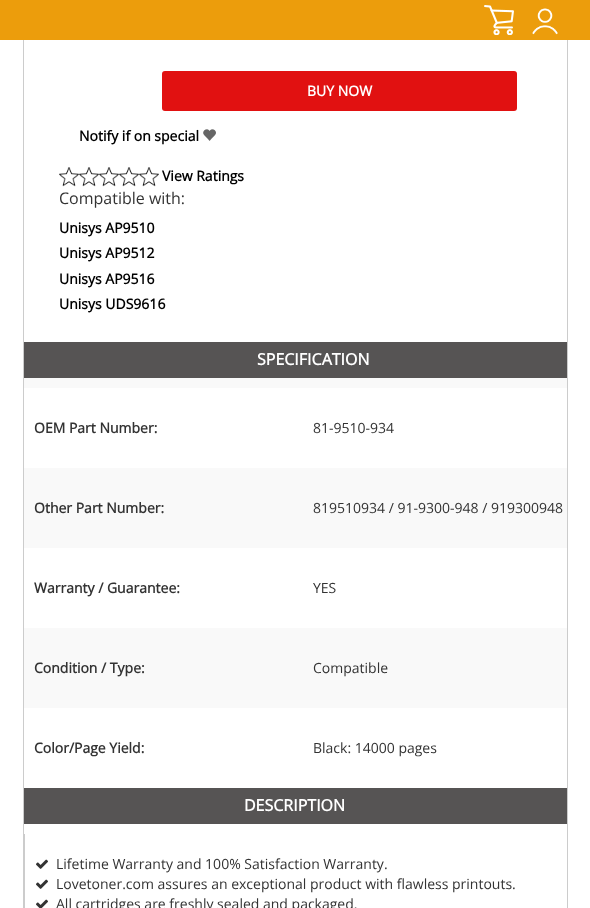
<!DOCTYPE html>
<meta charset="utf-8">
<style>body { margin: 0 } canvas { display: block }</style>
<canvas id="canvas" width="590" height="908"></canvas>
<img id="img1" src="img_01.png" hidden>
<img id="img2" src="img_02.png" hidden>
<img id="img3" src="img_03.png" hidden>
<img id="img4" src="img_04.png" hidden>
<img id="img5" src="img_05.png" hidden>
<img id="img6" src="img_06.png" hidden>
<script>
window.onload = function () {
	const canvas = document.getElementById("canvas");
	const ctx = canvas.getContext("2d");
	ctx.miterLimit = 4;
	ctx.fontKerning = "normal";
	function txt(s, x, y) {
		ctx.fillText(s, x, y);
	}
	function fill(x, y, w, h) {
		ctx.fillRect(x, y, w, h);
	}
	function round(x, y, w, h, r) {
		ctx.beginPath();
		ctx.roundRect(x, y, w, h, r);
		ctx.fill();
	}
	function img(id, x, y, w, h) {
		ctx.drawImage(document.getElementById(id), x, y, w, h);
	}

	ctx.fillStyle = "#FFFFFF";
	fill(0, 0, 590, 908);
	ctx.strokeStyle = "#CCCCCC";
	ctx.strokeRect(23.5, -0.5, 544, 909);
	ctx.fillStyle = "#EC9D0C";
	fill(0, 0, 590, 40);
	img("img1", 484, 5, 30, 30);
	img("img2", 532, 8, 26, 27);
	ctx.fillStyle = "#E11111";
	round(162, 71, 355, 40, 3);
	img("img3", 203, 129, 13, 12);
	img("img4", 59, 167, 20, 20);
	img("img4", 79, 167, 20, 20);
	img("img4", 99, 167, 20, 20);
	img("img4", 119, 167, 20, 20);
	img("img4", 139, 167, 20, 20);
	ctx.fillStyle = "#F9F9F9";
	fill(24, 378, 543, 10);
	ctx.fillStyle = "#565454";
	fill(24, 342, 543, 36);
	ctx.fillStyle = "#F9F9F9";
	fill(24, 468, 543, 80);
	fill(24, 628, 543, 80);
	ctx.fillStyle = "#565454";
	fill(24, 788, 543, 36);
	ctx.fillStyle = "#CCCCCC";
	fill(24, 834, 1, 74);
	img("img5", 36, 859, 12, 10);
	img("img5", 36, 879, 12, 10);
	img("img6", 36, 899, 12, 9);
	ctx.font = "bold 14px Open Sans";
	ctx.fillStyle = "#FFFFFF";
	txt("BUY NOW", 307, 96);
	ctx.fillStyle = "#000000";
	txt("Notify if on special", 79, 141);
	txt("View Ratings", 162, 181);
	ctx.font = "16px Open Sans";
	ctx.fillStyle = "#333333";
	txt("Compatible with:", 59, 204);
	ctx.font = "bold 14px Open Sans";
	ctx.fillStyle = "#000000";
	txt("Unisys AP9510", 59, 233);
	txt("Unisys AP9512", 59, 258);
	txt("Unisys AP9516", 59, 284);
	txt("Unisys UDS9616", 59, 309);
	ctx.font = "bold 16px Open Sans";
	ctx.fillStyle = "#FFFFFF";
	txt("SPECIFICATION", 257, 365);
	ctx.font = "bold 14px Open Sans";
	ctx.fillStyle = "#333333";
	txt("OEM Part Number:", 34, 433);
	ctx.font = "14px Open Sans";
	txt("81-9510-934", 313, 433);
	ctx.font = "bold 14px Open Sans";
	txt("Other Part Number:", 34, 513);
	ctx.font = "14px Open Sans";
	txt("819510934 / 91-9300-948 / 919300948", 313, 513);
	ctx.font = "bold 14px Open Sans";
	txt("Warranty / Guarantee:", 34, 593);
	ctx.font = "14px Open Sans";
	txt("YES", 313, 593);
	ctx.font = "bold 14px Open Sans";
	txt("Condition / Type:", 34, 673);
	ctx.font = "14px Open Sans";
	txt("Compatible", 313, 673);
	ctx.font = "bold 14px Open Sans";
	txt("Color/Page Yield:", 34, 753);
	ctx.font = "14px Open Sans";
	txt("Black: 14000 pages", 313, 753);
	ctx.font = "bold 16px Open Sans";
	ctx.fillStyle = "#FFFFFF";
	txt("DESCRIPTION", 244, 811);
	ctx.font = "14px Open Sans";
	ctx.fillStyle = "#333333";
	txt("Lifetime Warranty and 100% Satisfaction Warranty.", 56, 869);
	txt("Lovetoner.com assures an exceptional product with flawless printouts.", 56, 889);
	txt("All cartridges are freshly sealed and packaged.", 56, 909);
};
</script>
